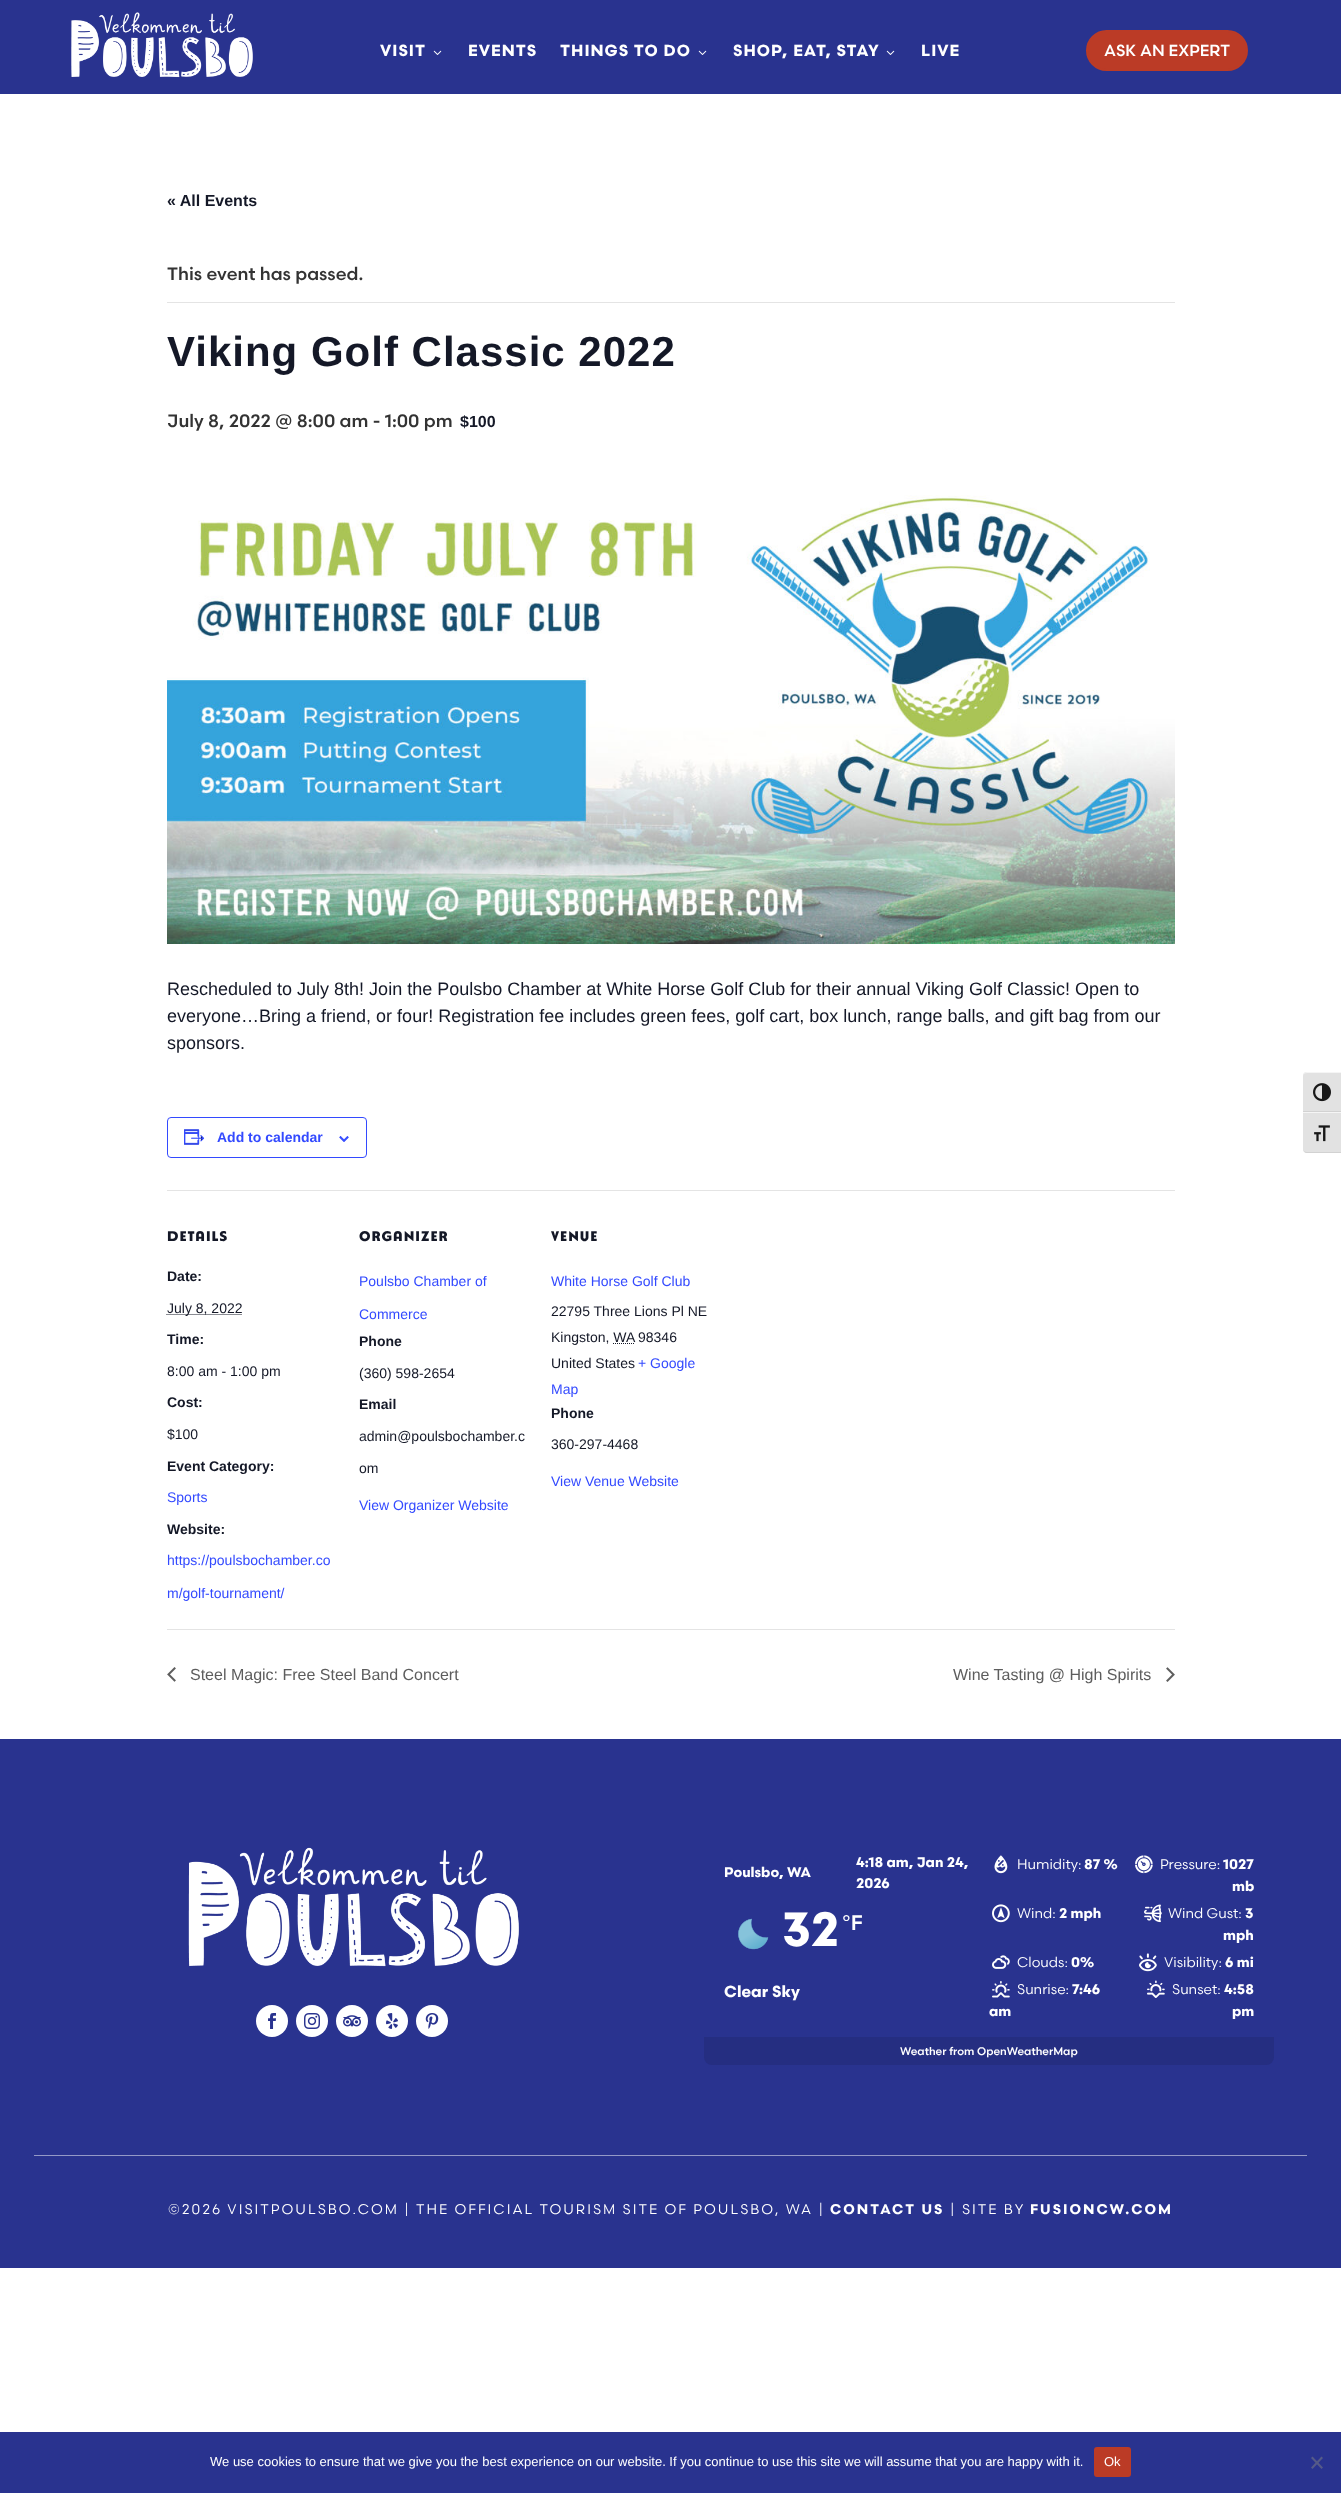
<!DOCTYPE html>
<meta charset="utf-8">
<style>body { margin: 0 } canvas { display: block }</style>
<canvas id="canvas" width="1341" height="2493"></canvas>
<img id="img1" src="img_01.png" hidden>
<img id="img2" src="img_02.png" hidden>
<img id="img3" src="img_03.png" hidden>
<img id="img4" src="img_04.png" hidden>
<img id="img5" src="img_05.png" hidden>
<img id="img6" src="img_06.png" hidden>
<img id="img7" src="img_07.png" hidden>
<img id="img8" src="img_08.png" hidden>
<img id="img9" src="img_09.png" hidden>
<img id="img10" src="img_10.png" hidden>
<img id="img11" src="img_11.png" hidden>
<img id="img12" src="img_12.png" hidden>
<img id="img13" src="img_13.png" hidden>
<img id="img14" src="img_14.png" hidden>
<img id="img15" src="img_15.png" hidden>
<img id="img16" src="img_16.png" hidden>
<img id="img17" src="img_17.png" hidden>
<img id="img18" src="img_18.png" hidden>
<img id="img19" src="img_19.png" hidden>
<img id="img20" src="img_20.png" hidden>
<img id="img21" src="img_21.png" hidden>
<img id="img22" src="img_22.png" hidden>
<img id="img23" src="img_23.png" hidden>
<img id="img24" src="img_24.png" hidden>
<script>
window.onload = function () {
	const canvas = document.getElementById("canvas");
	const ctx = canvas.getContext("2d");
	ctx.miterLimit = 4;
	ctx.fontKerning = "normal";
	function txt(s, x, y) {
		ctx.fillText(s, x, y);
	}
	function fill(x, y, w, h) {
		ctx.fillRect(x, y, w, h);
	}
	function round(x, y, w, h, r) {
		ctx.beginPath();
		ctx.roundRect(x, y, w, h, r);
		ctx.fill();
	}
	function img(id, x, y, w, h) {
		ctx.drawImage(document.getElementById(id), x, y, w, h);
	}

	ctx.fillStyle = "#FFFFFF";
	fill(0, 0, 1341, 2493);
	ctx.fillStyle = "#29338F";
	fill(0, 0, 1341, 94);
	img("img1", 71, 12, 182, 66);
	img("img2", 433, 50, 9, 5);
	img("img2", 698, 50, 9, 5);
	img("img2", 886, 50, 9, 5);
	ctx.fillStyle = "#BB3B26";
	ctx.beginPath();
	ctx.roundRect(1087, 31, 160, 39, 19.5);
	ctx.fill();
	ctx.strokeStyle = "#BB3B26";
	ctx.lineWidth = 2;
	ctx.stroke();
	ctx.fillStyle = "#E4E4E4";
	fill(167, 302, 1008, 1);
	img("img3", 167, 495, 1008, 449);
	ctx.beginPath();
	ctx.roundRect(167.5, 1117.5, 199, 40, 3.5);
	ctx.strokeStyle = "#334AFF";
	ctx.lineWidth = 1;
	ctx.stroke();
	img("img4", 184, 1129, 21, 16);
	img("img5", 339, 1136, 10, 6);
	fill(167, 1190, 1008, 1);
	ctx.beginPath();
	ctx.moveTo(166.5, 1314.5);
	ctx.lineTo(242, 1314.5);
	ctx.strokeStyle = "#141827";
	ctx.setLineDash([1, 1]);
	ctx.stroke();
	ctx.beginPath();
	ctx.moveTo(613, 1343.5);
	ctx.lineTo(634, 1343.5);
	ctx.stroke();
	fill(167, 1629, 1008, 1);
	img("img6", 167, 1667, 9, 15);
	img("img7", 1166, 1667, 9, 15);
	ctx.fillStyle = "#29338F";
	fill(0, 1739, 1341, 529);
	img("img8", 188, 1847, 331, 120);
	ctx.fillStyle = "#FFFFFF";
	ctx.beginPath();
	ctx.arc(272, 2021, 16, 0, Math.PI * 2);
	ctx.fill();
	img("img9", 268, 2013, 8, 16);
	ctx.beginPath();
	ctx.arc(312, 2021, 16, 0, Math.PI * 2);
	ctx.fill();
	img("img10", 304, 2013, 16, 16);
	ctx.beginPath();
	ctx.arc(352, 2021, 16, 0, Math.PI * 2);
	ctx.fill();
	img("img11", 343, 2015, 18, 12);
	ctx.beginPath();
	ctx.arc(392, 2021, 16, 0, Math.PI * 2);
	ctx.fill();
	img("img12", 386, 2013, 12, 16);
	ctx.beginPath();
	ctx.arc(432, 2021, 16, 0, Math.PI * 2);
	ctx.fill();
	img("img13", 425, 2013, 14, 16);
	img("img14", 738, 1918, 31, 32);
	img("img15", 994, 1855, 14, 19);
	img("img16", 1135, 1855, 18, 19);
	img("img17", 992, 1904, 18, 19);
	img("img18", 1144, 1904, 18, 19);
	img("img19", 992, 1955, 18, 14);
	img("img20", 1139, 1953, 18, 19);
	img("img21", 992, 1981, 18, 17);
	img("img22", 1147, 1980, 18, 18);
	ctx.fillStyle = "#252E81";
	ctx.beginPath();
	ctx.roundRect(704, 2037, 570, 28, [0, 0, 8, 8]);
	ctx.fill();
	ctx.fillStyle = "#9499C7";
	fill(34, 2155, 1273, 1);
	ctx.fillStyle = "#E2E2E2";
	ctx.beginPath();
	ctx.roundRect(1303, 1072, 38, 40, [4, 0, 0, 0]);
	ctx.fill();
	ctx.fillStyle = "#F5F5F5";
	ctx.beginPath();
	ctx.moveTo(1307, 1073);
	ctx.lineTo(1341, 1073);
	ctx.lineTo(1341, 1072);
	ctx.lineTo(1307, 1072);
	ctx.bezierCurveTo(1305, 1072, 1303, 1074, 1303, 1076);
	ctx.bezierCurveTo(1303, 1074, 1305, 1073, 1307, 1073);
	ctx.closePath();
	ctx.fill();
	ctx.fillStyle = "#D2D2D2";
	fill(1303, 1111, 38, 1);
	img("img23", 1313, 1083, 18, 19);
	ctx.fillStyle = "#E2E2E2";
	ctx.beginPath();
	ctx.roundRect(1303, 1112, 38, 41, [0, 0, 0, 4]);
	ctx.fill();
	ctx.fillStyle = "#F5F5F5";
	fill(1303, 1112, 38, 1);
	ctx.fillStyle = "#D2D2D2";
	ctx.beginPath();
	ctx.moveTo(1341, 1153);
	ctx.lineTo(1341, 1152);
	ctx.lineTo(1307, 1152);
	ctx.bezierCurveTo(1305, 1152, 1303, 1151, 1303, 1149);
	ctx.bezierCurveTo(1303, 1151, 1305, 1153, 1307, 1153);
	ctx.closePath();
	ctx.fill();
	img("img24", 1314, 1125, 16, 17);
	ctx.fillStyle = "#29338F";
	fill(0, 2432, 1341, 61);
	ctx.fillStyle = "#BB3B26";
	round(1094, 2447, 37, 30, 3);
	ctx.fillStyle = "#555A88";
	ctx.beginPath();
	ctx.moveTo(1321.5, 2456.5);
	ctx.lineTo(1323, 2458);
	ctx.lineTo(1312.5, 2469);
	ctx.lineTo(1311, 2467.5);
	ctx.closePath();
	ctx.fill();
	ctx.beginPath();
	ctx.moveTo(1311, 2458);
	ctx.lineTo(1312.5, 2456.5);
	ctx.lineTo(1323, 2467.5);
	ctx.lineTo(1321.5, 2469);
	ctx.closePath();
	ctx.fill();
	ctx.letterSpacing = "1px";
	ctx.font = "bold 16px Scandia";
	ctx.fillStyle = "#FFFFFF";
	txt("VISIT", 380, 56);
	txt("EVENTS", 468, 56);
	txt("THINGS TO DO", 560, 56);
	txt("SHOP, EAT, STAY", 733, 56);
	txt("LIVE", 921, 56);
	ctx.letterSpacing = "0px";
	ctx.font = "500 16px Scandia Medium";
	txt("ASK AN EXPERT", 1104, 56);
	ctx.font = "bold 16px Liberation Sans";
	ctx.fillStyle = "#141827";
	txt("« All Events", 167, 206);
	ctx.font = "500 18px Scandia Medium";
	ctx.fillStyle = "#333333";
	txt("This event has passed.", 167, 280);
	ctx.letterSpacing = "1px";
	ctx.font = "bold 42px Liberation Sans";
	ctx.fillStyle = "#141827";
	txt("Viking Golf Classic 2022", 167, 366);
	ctx.letterSpacing = "0px";
	ctx.font = "500 18px Scandia Medium";
	ctx.fillStyle = "#333333";
	txt("July 8, 2022 @ 8:00 am - 1:00 pm", 167, 427);
	ctx.font = "bold 16px Liberation Sans";
	ctx.fillStyle = "#141827";
	txt("$100", 460, 427);
	ctx.font = "18px Liberation Sans";
	txt("Rescheduled to July 8th! Join the Poulsbo Chamber at White Horse Golf Club for their annual Viking Golf Classic! Open to", 167, 995);
	txt("everyone…Bring a friend, or four! Registration fee includes green fees, golf cart, box lunch, range balls, and gift bag from our", 167, 1022);
	txt("sponsors.", 167, 1049);
	ctx.font = "bold 14px Liberation Sans";
	ctx.fillStyle = "#334AFF";
	txt("Add to calendar", 217, 1142);
	ctx.letterSpacing = "1px";
	ctx.font = "bold 14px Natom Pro";
	ctx.fillStyle = "#141827";
	txt("DETAILS", 167, 1241);
	ctx.letterSpacing = "0px";
	ctx.font = "bold 14px Liberation Sans";
	txt("Date:", 167, 1281);
	ctx.font = "14px Liberation Sans";
	txt("July 8, 2022", 167, 1313);
	ctx.font = "bold 14px Liberation Sans";
	txt("Time:", 167, 1344);
	ctx.font = "14px Liberation Sans";
	txt("8:00 am - 1:00 pm", 167, 1376);
	ctx.font = "bold 14px Liberation Sans";
	txt("Cost:", 167, 1407);
	ctx.font = "14px Liberation Sans";
	txt("$100", 167, 1439);
	ctx.font = "bold 14px Liberation Sans";
	txt("Event Category:", 167, 1471);
	ctx.font = "14px Liberation Sans";
	ctx.fillStyle = "#334AFF";
	txt("Sports", 167, 1502);
	ctx.font = "bold 14px Liberation Sans";
	ctx.fillStyle = "#141827";
	txt("Website:", 167, 1534);
	ctx.font = "14px Liberation Sans";
	ctx.fillStyle = "#334AFF";
	txt("https://poulsbochamber.co", 167, 1565);
	txt("m/golf-tournament/", 167, 1598);
	ctx.letterSpacing = "1px";
	ctx.font = "bold 14px Natom Pro";
	ctx.fillStyle = "#141827";
	txt("ORGANIZER", 359, 1241);
	ctx.letterSpacing = "0px";
	ctx.font = "14px Liberation Sans";
	ctx.fillStyle = "#334AFF";
	txt("Poulsbo Chamber of", 359, 1286);
	txt("Commerce", 359, 1319);
	ctx.font = "bold 14px Liberation Sans";
	ctx.fillStyle = "#141827";
	txt("Phone", 359, 1346);
	ctx.font = "14px Liberation Sans";
	txt("(360) 598-2654", 359, 1378);
	ctx.font = "bold 14px Liberation Sans";
	txt("Email", 359, 1409);
	ctx.font = "14px Liberation Sans";
	txt("admin@poulsbochamber.c", 359, 1441);
	txt("om", 359, 1473);
	ctx.fillStyle = "#334AFF";
	txt("View Organizer Website", 359, 1510);
	ctx.letterSpacing = "1px";
	ctx.font = "bold 14px Natom Pro";
	ctx.fillStyle = "#141827";
	txt("VENUE", 551, 1241);
	ctx.letterSpacing = "0px";
	ctx.font = "14px Liberation Sans";
	ctx.fillStyle = "#334AFF";
	txt("White Horse Golf Club", 551, 1286);
	ctx.fillStyle = "#141827";
	txt("22795 Three Lions Pl NE", 551, 1316);
	txt("Kingston, WA", 551, 1342);
	txt("98346", 638, 1342);
	txt("United States", 551, 1368);
	ctx.fillStyle = "#334AFF";
	txt("+ Google", 638, 1368);
	txt("Map", 551, 1394);
	ctx.font = "bold 14px Liberation Sans";
	ctx.fillStyle = "#141827";
	txt("Phone", 551, 1418);
	ctx.font = "14px Liberation Sans";
	txt("360-297-4468", 551, 1449);
	ctx.fillStyle = "#334AFF";
	txt("View Venue Website", 551, 1486);
	ctx.font = "16px Liberation Sans";
	ctx.fillStyle = "#5D5D5D";
	txt("Steel Magic: Free Steel Band Concert", 190, 1680);
	txt("Wine Tasting @ High Spirits", 953, 1680);
	ctx.font = "bold 14px Scandia";
	ctx.fillStyle = "#FFFFFF";
	txt("Poulsbo, WA", 724, 1877);
	txt("4:18 am, Jan 24,", 856, 1867);
	txt("2026", 856, 1888);
	ctx.font = "bold 48px Scandia";
	txt("32", 782, 1946);
	ctx.font = "500 21px Scandia Medium";
	txt("°F", 842, 1930);
	ctx.font = "bold 16px Scandia";
	txt("Clear Sky", 724, 1997);
	ctx.font = "14px Scandia";
	txt("Humidity:", 1017, 1869);
	ctx.font = "bold 14px Scandia";
	txt("87 %", 1084, 1869);
	ctx.font = "14px Scandia";
	txt("Pressure:", 1160, 1869);
	ctx.font = "bold 14px Scandia";
	txt("1027", 1223, 1869);
	txt("mb", 1232, 1891);
	ctx.font = "14px Scandia";
	txt("Wind:", 1017, 1918);
	ctx.font = "bold 14px Scandia";
	txt("2 mph", 1059, 1918);
	ctx.font = "14px Scandia";
	txt("Wind Gust:", 1168, 1918);
	ctx.font = "bold 14px Scandia";
	txt("3", 1245, 1918);
	txt("mph", 1223, 1940);
	ctx.font = "14px Scandia";
	txt("Clouds:", 1017, 1967);
	ctx.font = "bold 14px Scandia";
	txt("0%", 1071, 1967);
	ctx.font = "14px Scandia";
	txt("Visibility:", 1164, 1967);
	ctx.font = "bold 14px Scandia";
	txt("6 mi", 1225, 1967);
	ctx.font = "14px Scandia";
	txt("Sunrise:", 1017, 1994);
	ctx.font = "bold 14px Scandia";
	txt("7:46", 1072, 1994);
	txt("am", 989, 2016);
	ctx.font = "14px Scandia";
	txt("Sunset:", 1172, 1994);
	ctx.font = "bold 14px Scandia";
	txt("4:58", 1224, 1994);
	txt("pm", 1232, 2016);
	ctx.font = "500 11px Scandia Medium";
	txt("Weather from OpenWeatherMap", 900, 2055);
	ctx.letterSpacing = "2px";
	ctx.font = "14px Scandia";
	txt("©2026 VISITPOULSBO.COM | THE OFFICIAL TOURISM SITE OF POULSBO, WA |", 168, 2214);
	ctx.font = "bold 14px Scandia";
	txt("CONTACT US", 830, 2214);
	ctx.font = "14px Scandia";
	txt("| SITE BY", 950, 2214);
	ctx.font = "bold 14px Scandia";
	txt("FUSIONCW.COM", 1030, 2214);
	ctx.letterSpacing = "0px";
	ctx.font = "13px Liberation Sans";
	txt("We use cookies to ensure that we give you the best experience on our website. If you continue to use this site we will assume that you are happy with it.", 210, 2466);
	txt("Ok", 1104, 2466);
};
</script>
